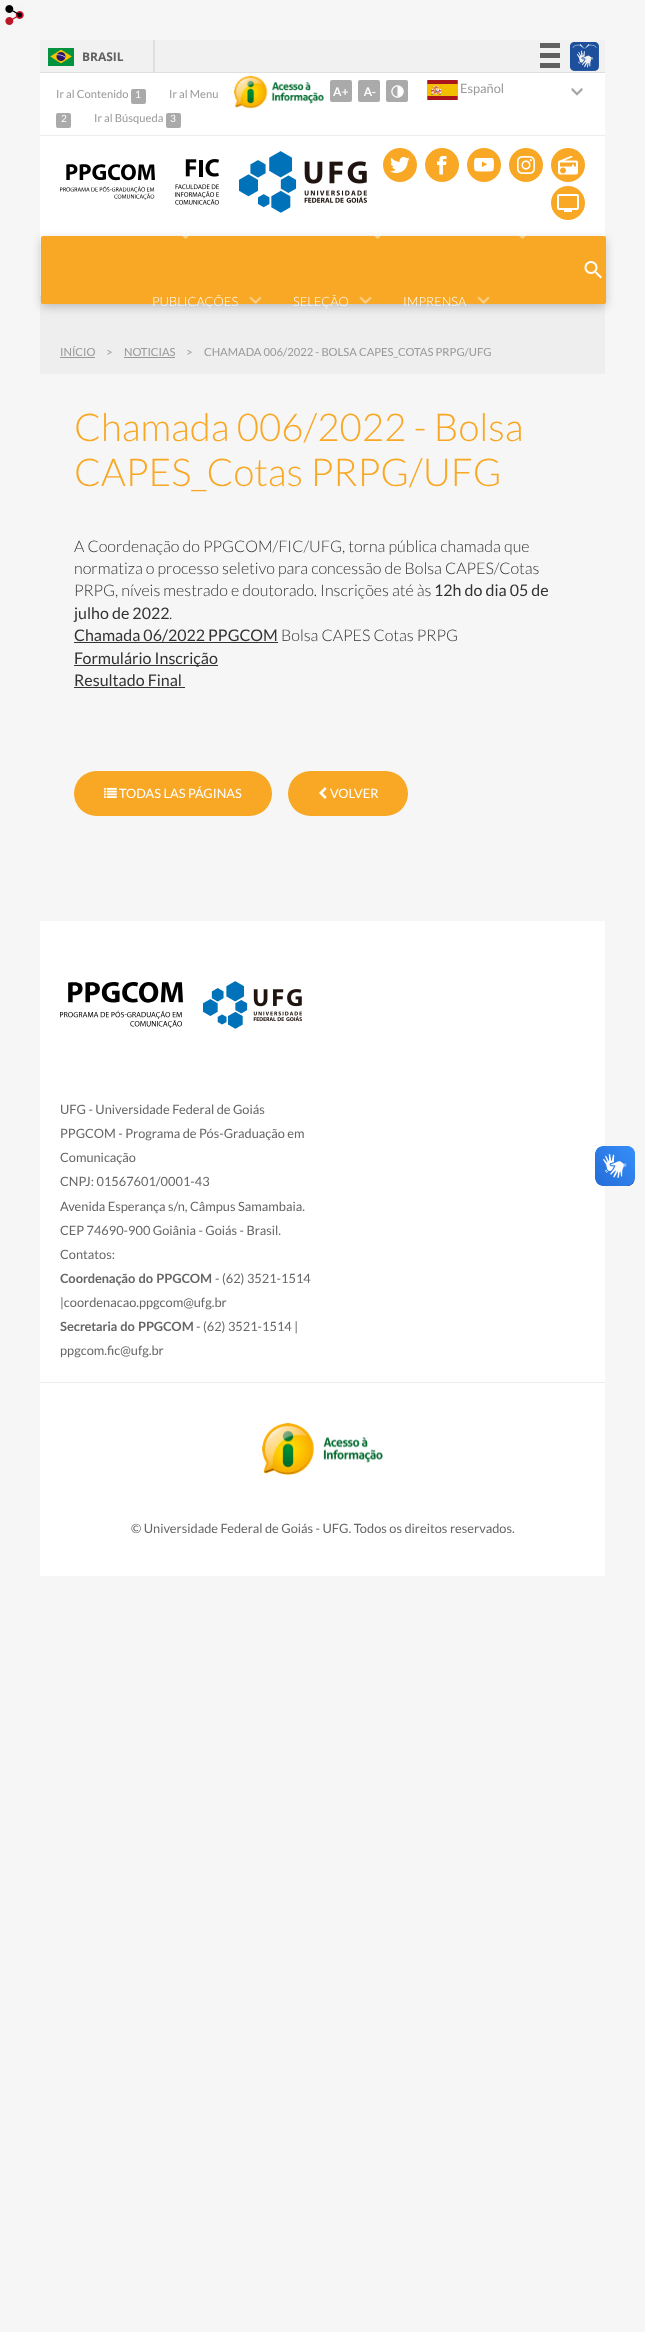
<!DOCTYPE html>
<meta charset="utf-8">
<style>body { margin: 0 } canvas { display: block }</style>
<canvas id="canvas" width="645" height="2332"></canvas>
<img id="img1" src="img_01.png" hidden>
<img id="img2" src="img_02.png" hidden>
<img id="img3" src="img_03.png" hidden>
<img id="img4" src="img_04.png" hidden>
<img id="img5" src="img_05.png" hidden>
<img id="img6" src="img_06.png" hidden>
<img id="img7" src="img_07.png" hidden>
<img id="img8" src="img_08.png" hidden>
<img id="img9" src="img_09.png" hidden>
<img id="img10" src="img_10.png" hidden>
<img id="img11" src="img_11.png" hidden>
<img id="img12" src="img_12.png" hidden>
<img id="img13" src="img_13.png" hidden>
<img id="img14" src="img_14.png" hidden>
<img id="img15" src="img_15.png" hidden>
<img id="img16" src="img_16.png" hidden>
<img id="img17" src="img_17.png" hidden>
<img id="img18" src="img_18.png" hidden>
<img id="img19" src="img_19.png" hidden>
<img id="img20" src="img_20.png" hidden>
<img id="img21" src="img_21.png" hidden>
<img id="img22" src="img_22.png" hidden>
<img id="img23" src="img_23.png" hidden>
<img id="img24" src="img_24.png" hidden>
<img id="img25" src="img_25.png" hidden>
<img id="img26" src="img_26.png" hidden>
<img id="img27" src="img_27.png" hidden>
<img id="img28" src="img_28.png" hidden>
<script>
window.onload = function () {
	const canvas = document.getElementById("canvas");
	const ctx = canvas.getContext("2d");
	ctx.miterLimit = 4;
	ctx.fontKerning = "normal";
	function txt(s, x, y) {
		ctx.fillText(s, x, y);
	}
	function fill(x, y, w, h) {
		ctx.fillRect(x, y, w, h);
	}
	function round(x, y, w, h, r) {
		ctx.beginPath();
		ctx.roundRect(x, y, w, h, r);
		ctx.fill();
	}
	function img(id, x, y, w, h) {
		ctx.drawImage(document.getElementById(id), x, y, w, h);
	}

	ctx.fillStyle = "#F6F6F6";
	fill(0, 0, 645, 2332);
	img("img1", 5, 5, 19, 20);
	ctx.fillStyle = "#F1F1F1";
	fill(40, 40, 565, 32);
	ctx.fillStyle = "#DFDFDF";
	fill(40, 72, 565, 1);
	fill(153, 40, 2, 32);
	img("img2", 48, 48, 26, 18);
	ctx.fillStyle = "#606060";
	fill(540, 43, 20, 5);
	fill(540, 53, 20, 5);
	fill(540, 63, 20, 5);
	img("img3", 570, 42, 29, 29);
	ctx.fillStyle = "#FFFFFF";
	fill(40, 73, 565, 62);
	ctx.fillStyle = "#ECECEC";
	fill(40, 135, 565, 1);
	ctx.fillStyle = "#AAAAAA";
	round(131, 89, 15, 15, 2);
	round(56, 113, 15, 15, 2);
	round(166, 113, 15, 15, 2);
	img("img4", 234, 75, 90, 34);
	round(330, 80, 22, 22, 2);
	img("img5", 333, 87, 15, 9);
	round(358, 80, 22, 22, 2);
	img("img6", 363, 87, 13, 9);
	round(386, 80, 22, 22, 2);
	img("img7", 391, 85, 13, 13);
	img("img8", 571, 87, 12, 9);
	img("img9", 427, 80, 31, 20);
	ctx.fillStyle = "#FFFFFF";
	fill(40, 136, 565, 160);
	img("img10", 60, 164, 95, 36);
	img("img11", 175, 159, 44, 46);
	img("img12", 239, 151, 128, 62);
	ctx.fillStyle = "#F9A825";
	ctx.beginPath();
	ctx.arc(400, 165, 17, 0, Math.PI * 2);
	ctx.fill();
	img("img13", 390, 157, 20, 16);
	ctx.beginPath();
	ctx.arc(442, 165, 17, 0, Math.PI * 2);
	ctx.fill();
	img("img14", 437, 156, 10, 19);
	ctx.beginPath();
	ctx.arc(484, 165, 17, 0, Math.PI * 2);
	ctx.fill();
	img("img15", 474, 158, 20, 14);
	ctx.beginPath();
	ctx.arc(526, 165, 17, 0, Math.PI * 2);
	ctx.fill();
	img("img16", 517, 156, 18, 18);
	ctx.beginPath();
	ctx.arc(568, 165, 17, 0, Math.PI * 2);
	ctx.fill();
	img("img17", 558, 156, 20, 19);
	ctx.beginPath();
	ctx.arc(568, 203, 17, 0, Math.PI * 2);
	ctx.fill();
	img("img18", 557, 194, 22, 18);
	ctx.fillStyle = "#EEEEEE";
	fill(40, 296, 565, 78);
	ctx.fillStyle = "rgba(0, 0, 0, 0.2)";
	ctx.filter = "blur(5px)";
	ctx.beginPath();
	ctx.roundRect(41, 239, 565, 68, 2);
	ctx.fill();
	ctx.filter = "none";
	ctx.fillStyle = "#F9A825";
	round(41, 236, 565, 68, 2);
	img("img19", 584, 261, 18, 18);
	img("img20", 182, 234, 7, 5);
	img("img20", 374, 234, 7, 5);
	img("img20", 519, 234, 7, 5);
	img("img21", 249, 296, 13, 8);
	img("img21", 359, 296, 13, 8);
	img("img21", 477, 296, 13, 8);
	ctx.fillStyle = "#999999";
	fill(60, 357, 35, 1);
	fill(124, 357, 51, 1);
	ctx.fillStyle = "#333333";
	fill(74, 642, 204, 1);
	fill(74, 665, 144, 1);
	fill(74, 687, 111, 1);
	ctx.fillStyle = "#F9A825";
	round(74, 771, 198, 45, 22.5);
	img("img22", 104, 787, 13, 11);
	round(288, 771, 120, 45, 22.5);
	img("img23", 319, 787, 8, 12);
	ctx.fillStyle = "#FFFFFF";
	fill(40, 921, 565, 655);
	img("img24", 60, 982, 123, 46);
	img("img25", 203, 981, 99, 48);
	ctx.fillStyle = "#ECECEC";
	fill(40, 1382, 565, 1);
	img("img26", 262, 1423, 121, 52);
	img("img27", 595, 1146, 40, 40);
	img("img28", 595, 1146, 40, 40);
	ctx.font = "bold 12px Open Sans";
	ctx.fillStyle = "#606060";
	txt("BRASIL", 82, 61);
	ctx.font = "11.2px Lato";
	ctx.fillStyle = "#999999";
	txt("Ir al Contenido", 56, 98);
	ctx.font = "10px Lato";
	ctx.fillStyle = "#FFFFFF";
	txt("1", 135, 98);
	ctx.font = "11.2px Lato";
	ctx.fillStyle = "#999999";
	txt("Ir al Menu", 169, 98);
	ctx.font = "10px Lato";
	ctx.fillStyle = "#FFFFFF";
	txt("2", 61, 122);
	ctx.font = "11.2px Lato";
	ctx.fillStyle = "#999999";
	txt("Ir al Búsqueda", 94, 122);
	ctx.font = "10px Lato";
	ctx.fillStyle = "#FFFFFF";
	txt("3", 170, 122);
	ctx.font = "12.8px Lato";
	ctx.fillStyle = "#999999";
	txt("Español", 460, 93);
	ctx.font = "300 12.8px Lato";
	ctx.fillStyle = "#FFFFFF";
	txt("PUBLICAÇÕES", 152, 306);
	txt("SELEÇÃO", 293, 306);
	txt("IMPRENSA", 403, 306);
	ctx.font = "11.2px Lato";
	ctx.fillStyle = "#999999";
	txt("INÍCIO", 60, 356);
	txt(">", 106, 356);
	txt("NOTICIAS", 124, 356);
	txt(">", 186, 356);
	txt("CHAMADA 006/2022 - BOLSA CAPES_COTAS PRPG/UFG", 204, 356);
	ctx.font = "300 38.4px Lato";
	ctx.fillStyle = "#F9A825";
	txt("Chamada 006/2022 - Bolsa", 74, 441);
	txt("CAPES_Cotas PRPG/UFG", 74, 486);
	ctx.font = "300 16px Lato";
	ctx.fillStyle = "#333333";
	txt("A Coordenação do PPGCOM/FIC/UFG, torna pública chamada que", 74, 552);
	txt("normatiza o processo seletivo para concessão de Bolsa CAPES/Cotas", 74, 574);
	txt("PRPG, níveis mestrado e doutorado. Inscrições até às", 74, 596);
	ctx.font = "16px Lato";
	txt("12h do dia 05 de", 434, 596);
	txt("julho de 2022", 74, 619);
	ctx.font = "300 16px Lato";
	txt(".", 169, 619);
	ctx.font = "16px Lato";
	txt("Chamada 06/2022 PPGCOM", 74, 641);
	ctx.font = "300 16px Lato";
	txt("Bolsa CAPES Cotas PRPG", 281, 641);
	ctx.font = "16px Lato";
	txt("Formulário Inscrição", 74, 664);
	txt("Resultado Final", 74, 686);
	ctx.font = "12.8px Lato";
	ctx.fillStyle = "#FFFFFF";
	txt("TODAS LAS PÁGINAS", 119, 798);
	txt("VOLVER", 330, 798);
	ctx.fillStyle = "#666666";
	txt("UFG - Universidade Federal de Goiás", 60, 1114);
	txt("PPGCOM - Programa de Pós-Graduação em", 60, 1138);
	txt("Comunicação", 60, 1162);
	txt("CNPJ: 01567601/0001-43", 60, 1186);
	txt("Avenida Esperança s/n, Câmpus Samambaia.", 60, 1211);
	txt("CEP 74690-900 Goiânia - Goiás - Brasil.", 60, 1235);
	txt("Contatos:", 60, 1259);
	ctx.font = "bold 12.8px Lato";
	txt("Coordenação do PPGCOM", 60, 1283);
	ctx.font = "12.8px Lato";
	txt("- (62) 3521-1514", 215, 1283);
	txt("|coordenacao.ppgcom@ufg.br", 60, 1307);
	ctx.font = "bold 12.8px Lato";
	txt("Secretaria do PPGCOM", 60, 1331);
	ctx.font = "12.8px Lato";
	txt("- (62) 3521-1514 |", 196, 1331);
	txt("ppgcom.fic@ufg.br", 60, 1355);
	txt("© Universidade Federal de Goiás - UFG. Todos os direitos reservados.", 131, 1533);
};
</script>
